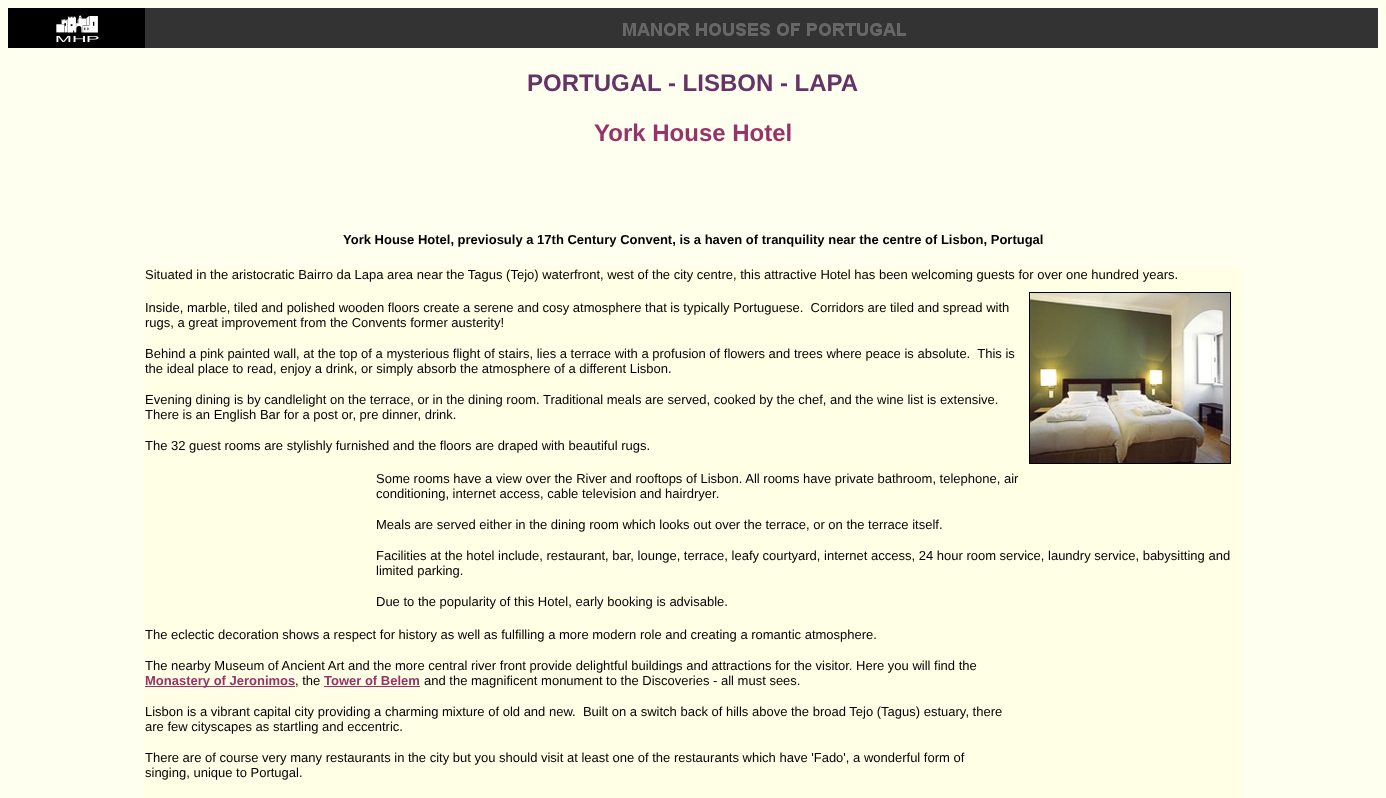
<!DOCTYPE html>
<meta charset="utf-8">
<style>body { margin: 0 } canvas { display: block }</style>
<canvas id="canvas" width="1386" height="798"></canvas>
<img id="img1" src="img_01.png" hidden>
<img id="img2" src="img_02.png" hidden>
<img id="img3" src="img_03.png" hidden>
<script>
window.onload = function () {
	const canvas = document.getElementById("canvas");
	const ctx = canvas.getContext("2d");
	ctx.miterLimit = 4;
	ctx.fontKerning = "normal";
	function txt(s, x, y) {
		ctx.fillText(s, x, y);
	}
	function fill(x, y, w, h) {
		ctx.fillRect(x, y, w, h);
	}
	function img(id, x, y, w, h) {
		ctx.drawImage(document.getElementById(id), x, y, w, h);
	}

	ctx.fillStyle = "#FFFFF0";
	fill(0, 0, 1386, 798);
	ctx.fillStyle = "#000000";
	fill(8, 8, 137, 40);
	img("img1", 56, 15, 43, 27);
	ctx.fillStyle = "#333333";
	fill(145, 8, 1233, 40);
	img("img2", 623, 23, 283, 13);
	ctx.fillStyle = "#FFFFE6";
	fill(145, 267, 1096, 531);
	ctx.strokeStyle = "#000000";
	ctx.strokeRect(1029.5, 292.5, 201, 171);
	img("img3", 1030, 293, 200, 170);
	ctx.fillStyle = "#993366";
	fill(145, 686, 150, 1);
	fill(324, 686, 96, 1);
	ctx.font = "bold 24px Liberation Sans";
	ctx.fillStyle = "#663366";
	txt("PORTUGAL - LISBON - LAPA", 527, 91);
	ctx.fillStyle = "#993366";
	txt("York House Hotel", 594, 141);
	ctx.font = "bold 13px Liberation Sans";
	ctx.fillStyle = "#000000";
	txt("York House Hotel, previosuly a 17th Century Convent, is a haven of tranquility near the centre of Lisbon, Portugal", 343, 244);
	ctx.font = "13px Liberation Sans";
	txt("Situated in the aristocratic Bairro da Lapa area near the Tagus (Tejo) waterfront, west of the city centre, this attractive Hotel has been welcoming guests for over one hundred years.", 145, 279);
	txt("Inside, marble, tiled and polished wooden floors create a serene and cosy atmosphere that is typically Portuguese.  Corridors are tiled and spread with", 145, 312);
	txt("rugs, a great improvement from the Convents former austerity!", 145, 327);
	txt("Behind a pink painted wall, at the top of a mysterious flight of stairs, lies a terrace with a profusion of flowers and trees where peace is absolute.  This is", 145, 358);
	txt("the ideal place to read, enjoy a drink, or simply absorb the atmosphere of a different Lisbon.", 145, 373);
	txt("Evening dining is by candlelight on the terrace, or in the dining room. Traditional meals are served, cooked by the chef, and the wine list is extensive.", 145, 404);
	txt("There is an English Bar for a post or, pre dinner, drink.", 145, 419);
	txt("The 32 guest rooms are stylishly furnished and the floors are draped with beautiful rugs.", 145, 450);
	txt("Some rooms have a view over the River and rooftops of Lisbon. All rooms have private bathroom, telephone, air", 376, 483);
	txt("conditioning, internet access, cable television and hairdryer.", 376, 498);
	txt("Meals are served either in the dining room which looks out over the terrace, or on the terrace itself.", 376, 529);
	txt("Facilities at the hotel include, restaurant, bar, lounge, terrace, leafy courtyard, internet access, 24 hour room service, laundry service, babysitting and", 376, 560);
	txt("limited parking.", 376, 575);
	txt("Due to the popularity of this Hotel, early booking is advisable.", 376, 606);
	txt("The eclectic decoration shows a respect for history as well as fulfilling a more modern role and creating a romantic atmosphere.", 145, 639);
	txt("The nearby Museum of Ancient Art and the more central river front provide delightful buildings and attractions for the visitor. Here you will find the", 145, 670);
	ctx.font = "bold 13px Liberation Sans";
	ctx.fillStyle = "#993366";
	txt("Monastery of Jeronimos", 145, 685);
	ctx.font = "13px Liberation Sans";
	ctx.fillStyle = "#000000";
	txt(", the", 295, 685);
	ctx.font = "bold 13px Liberation Sans";
	ctx.fillStyle = "#993366";
	txt("Tower of Belem", 324, 685);
	ctx.font = "13px Liberation Sans";
	ctx.fillStyle = "#000000";
	txt("and the magnificent monument to the Discoveries - all must sees.", 424, 685);
	txt("Lisbon is a vibrant capital city providing a charming mixture of old and new.  Built on a switch back of hills above the broad Tejo (Tagus) estuary, there", 145, 716);
	txt("are few cityscapes as startling and eccentric.", 145, 731);
	txt("There are of course very many restaurants in the city but you should visit at least one of the restaurants which have 'Fado', a wonderful form of", 145, 762);
	txt("singing, unique to Portugal.", 145, 777);
};
</script>
